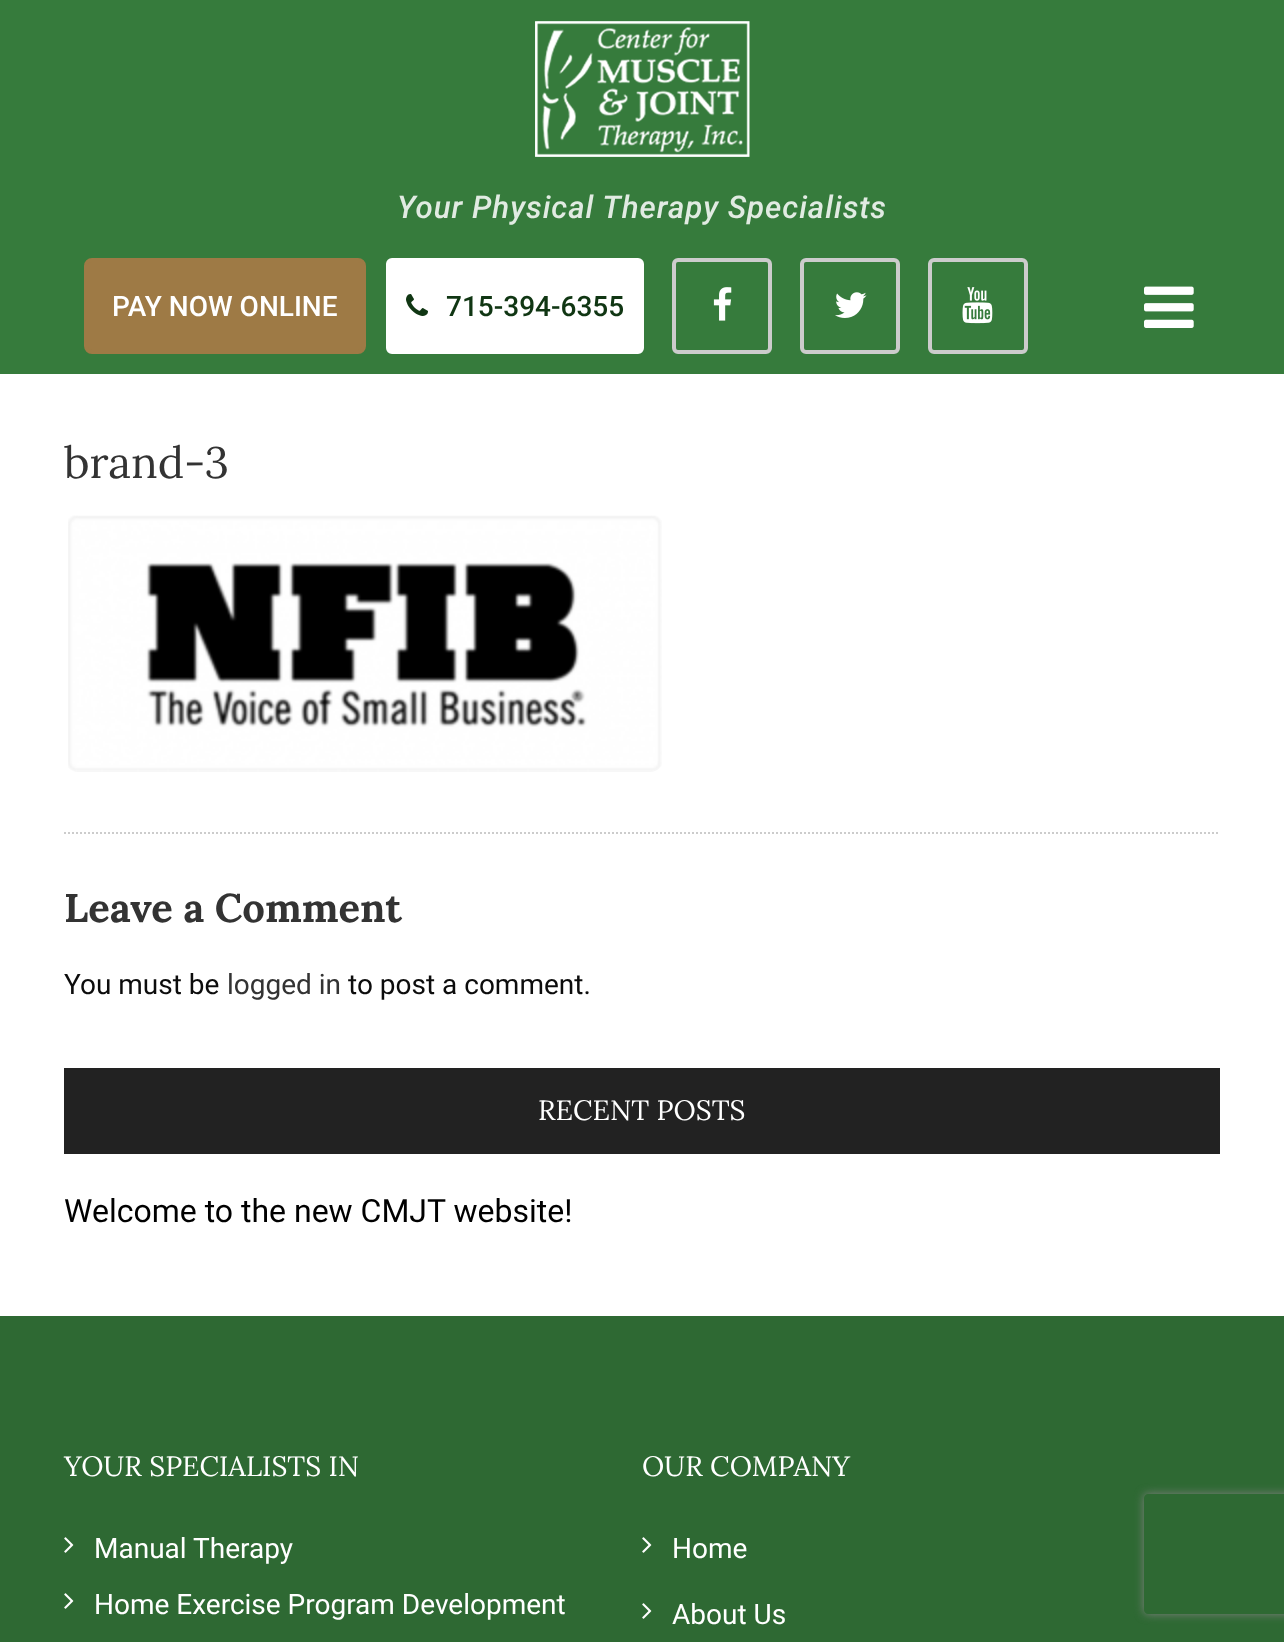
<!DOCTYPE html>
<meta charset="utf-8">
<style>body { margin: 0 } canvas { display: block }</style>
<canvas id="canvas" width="1284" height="1642"></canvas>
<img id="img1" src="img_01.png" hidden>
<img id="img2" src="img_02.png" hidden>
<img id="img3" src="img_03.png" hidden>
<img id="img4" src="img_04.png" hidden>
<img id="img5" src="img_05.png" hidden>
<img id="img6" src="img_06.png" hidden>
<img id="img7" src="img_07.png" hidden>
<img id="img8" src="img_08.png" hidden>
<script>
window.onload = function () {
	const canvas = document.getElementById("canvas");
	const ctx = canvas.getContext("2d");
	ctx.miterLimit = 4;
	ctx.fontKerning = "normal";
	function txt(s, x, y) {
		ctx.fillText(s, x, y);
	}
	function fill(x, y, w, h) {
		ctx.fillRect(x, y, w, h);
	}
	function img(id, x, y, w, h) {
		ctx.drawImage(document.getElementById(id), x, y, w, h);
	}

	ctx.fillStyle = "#367B3C";
	fill(0, 0, 1284, 1642);
	img("img1", 535, 21, 215, 136);
	ctx.fillStyle = "#9E7A45";
	ctx.beginPath();
	ctx.roundRect(86, 260, 278, 92, 6);
	ctx.fill();
	ctx.strokeStyle = "#9E7A45";
	ctx.lineWidth = 4;
	ctx.stroke();
	ctx.fillStyle = "#FFFFFF";
	ctx.beginPath();
	ctx.roundRect(388, 260, 254, 92, 4);
	ctx.fill();
	ctx.strokeStyle = "#FFFFFF";
	ctx.stroke();
	img("img2", 406, 294, 22, 22);
	ctx.beginPath();
	ctx.roundRect(674, 260, 96, 92, 4);
	ctx.strokeStyle = "#CCCCCC";
	ctx.stroke();
	img("img3", 713, 287, 19, 34);
	ctx.beginPath();
	ctx.roundRect(802, 260, 96, 92, 4);
	ctx.stroke();
	img("img4", 835, 292, 32, 26);
	ctx.beginPath();
	ctx.roundRect(930, 260, 96, 92, 4);
	ctx.stroke();
	img("img5", 962, 287, 31, 37);
	img("img6", 1144, 286, 50, 42);
	fill(0, 374, 1284, 942);
	img("img7", 68, 515, 594, 257);
	ctx.beginPath();
	ctx.moveTo(64, 833);
	ctx.lineTo(1220, 833);
	ctx.lineWidth = 2;
	ctx.setLineDash([2, 2]);
	ctx.stroke();
	ctx.fillStyle = "#222222";
	fill(64, 1068, 1156, 86);
	ctx.fillStyle = "#2E6933";
	fill(0, 1316, 1284, 326);
	img("img8", 64, 1537, 10, 16);
	img("img8", 64, 1593, 10, 16);
	img("img8", 642, 1537, 10, 16);
	img("img8", 642, 1603, 10, 16);
	ctx.save();
	ctx.beginPath();
	ctx.moveTo(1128, 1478);
	ctx.lineTo(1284, 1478);
	ctx.lineTo(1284, 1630);
	ctx.lineTo(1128, 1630);
	ctx.closePath();
	ctx.moveTo(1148, 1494);
	ctx.lineTo(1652, 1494);
	ctx.bezierCurveTo(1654, 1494, 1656, 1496, 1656, 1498);
	ctx.lineTo(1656, 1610);
	ctx.bezierCurveTo(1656, 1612, 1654, 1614, 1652, 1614);
	ctx.lineTo(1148, 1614);
	ctx.bezierCurveTo(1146, 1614, 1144, 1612, 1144, 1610);
	ctx.lineTo(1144, 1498);
	ctx.bezierCurveTo(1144, 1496, 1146, 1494, 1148, 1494);
	ctx.closePath();
	ctx.clip("evenodd");
	ctx.fillStyle = "#808080";
	ctx.filter = "blur(5px)";
	ctx.beginPath();
	ctx.roundRect(1144, 1494, 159, 120, 4);
	ctx.fill();
	ctx.filter = "none";
	ctx.restore();
	ctx.letterSpacing = "1px";
	ctx.font = "italic 500 31.25px Roboto";
	ctx.fillStyle = "#E1EBE2";
	txt("Your Physical Therapy Specialists", 397, 218);
	ctx.letterSpacing = "0px";
	ctx.font = "500 28px Roboto";
	ctx.fillStyle = "#FFFFFF";
	txt("PAY NOW ONLINE", 112, 316);
	ctx.fillStyle = "#103613";
	txt("715-394-6355", 446, 316);
	ctx.font = "44px Lora";
	ctx.fillStyle = "#333333";
	txt("brand-3", 64, 478);
	ctx.font = "bold 40px Lora";
	txt("Leave a Comment", 64, 922);
	ctx.font = "28px Roboto";
	ctx.fillStyle = "#0C0C0C";
	txt("You must be", 64, 994);
	ctx.fillStyle = "#333333";
	txt("logged in", 227, 994);
	ctx.fillStyle = "#0C0C0C";
	txt("to post a comment.", 348, 994);
	ctx.font = "28px Lora";
	ctx.fillStyle = "#FFFFFF";
	txt("RECENT POSTS", 538, 1120);
	ctx.font = "32px Roboto";
	ctx.fillStyle = "#000000";
	txt("Welcome to the new CMJT website!", 64, 1222);
	ctx.font = "28px Lora";
	ctx.fillStyle = "#FFFFFF";
	txt("YOUR SPECIALISTS IN", 64, 1476);
	ctx.font = "28px Roboto";
	txt("Manual Therapy", 94, 1558);
	txt("Home Exercise Program Development", 94, 1614);
	ctx.font = "28px Lora";
	txt("OUR COMPANY", 642, 1476);
	ctx.font = "28px Roboto";
	txt("Home", 672, 1558);
	txt("About Us", 672, 1624);
};
</script>
